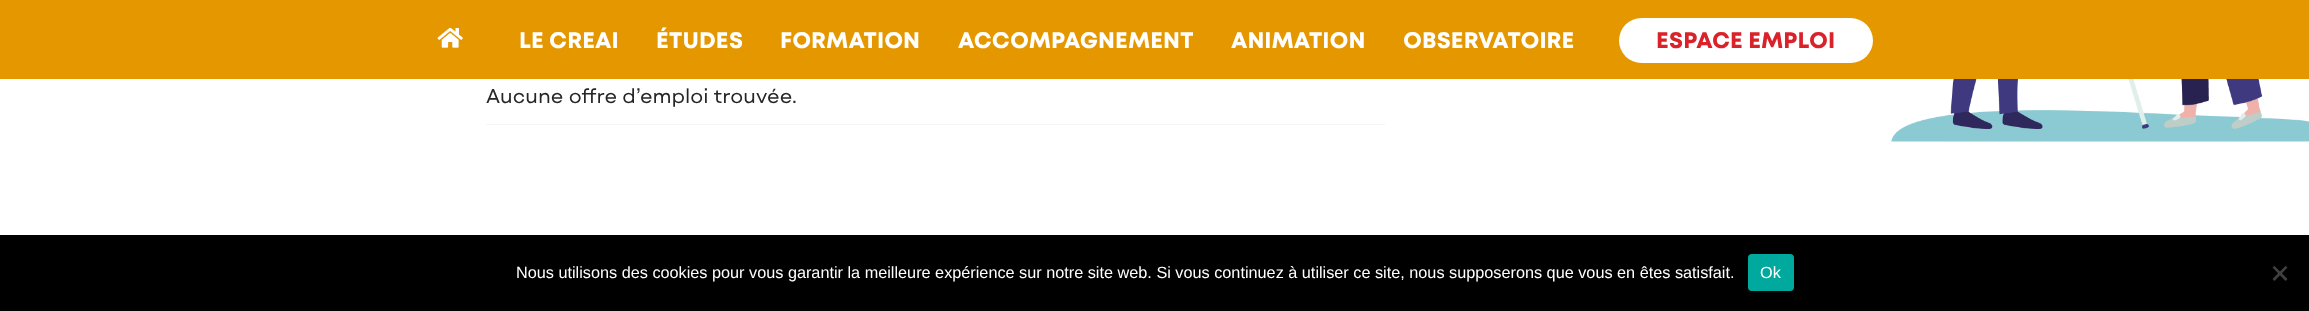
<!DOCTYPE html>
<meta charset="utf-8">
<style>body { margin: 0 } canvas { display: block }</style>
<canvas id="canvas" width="2309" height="311"></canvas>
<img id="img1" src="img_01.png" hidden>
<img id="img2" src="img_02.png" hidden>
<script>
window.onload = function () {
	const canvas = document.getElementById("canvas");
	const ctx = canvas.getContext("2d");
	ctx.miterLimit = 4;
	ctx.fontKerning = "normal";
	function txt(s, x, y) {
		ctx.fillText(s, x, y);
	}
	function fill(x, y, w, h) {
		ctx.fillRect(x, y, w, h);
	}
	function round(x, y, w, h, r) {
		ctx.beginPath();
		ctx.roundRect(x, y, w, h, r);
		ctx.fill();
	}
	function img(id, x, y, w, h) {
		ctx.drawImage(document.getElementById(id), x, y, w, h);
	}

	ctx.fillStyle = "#FFFFFF";
	fill(0, 0, 2309, 311);
	ctx.fillStyle = "#E59700";
	fill(0, 0, 2309, 79);
	img("img1", 437, 28, 26, 20);
	ctx.fillStyle = "#FFFFFF";
	round(1619, 18, 254, 45, 22.5);
	ctx.fillStyle = "#F5F5F5";
	fill(486, 124, 899, 1);
	img("img2", 1891, 79, 418, 63);
	ctx.fillStyle = "#000000";
	fill(0, 235, 2309, 76);
	ctx.fillStyle = "#00A99D";
	round(1748, 254, 46, 37, 4);
	ctx.fillStyle = "#404040";
	ctx.beginPath();
	ctx.moveTo(2285.5, 266);
	ctx.lineTo(2287.5, 267.5);
	ctx.lineTo(2274.5, 281);
	ctx.lineTo(2272.5, 279);
	ctx.closePath();
	ctx.fill();
	ctx.beginPath();
	ctx.moveTo(2272.5, 267.5);
	ctx.lineTo(2274.5, 266);
	ctx.lineTo(2287.5, 279);
	ctx.lineTo(2285.5, 281);
	ctx.closePath();
	ctx.fill();
	ctx.font = "bold 22.5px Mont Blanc";
	ctx.fillStyle = "#FFFFFF";
	txt("LE CREAI", 519, 48);
	txt("ÉTUDES", 656, 48);
	txt("FORMATION", 780, 48);
	txt("ACCOMPAGNEMENT", 958, 48);
	txt("ANIMATION", 1231, 48);
	txt("OBSERVATOIRE", 1403, 48);
	ctx.fillStyle = "#D9222A";
	txt("ESPACE EMPLOI", 1656, 48);
	ctx.font = "20px Mont Blanc";
	ctx.fillStyle = "#262626";
	txt("Aucune offre d’emploi trouvée.", 486, 103);
	ctx.font = "16.25px Liberation Sans";
	ctx.fillStyle = "#FFFFFF";
	txt("Nous utilisons des cookies pour vous garantir la meilleure expérience sur notre site web. Si vous continuez à utiliser ce site, nous supposerons que vous en êtes satisfait.", 516, 278);
	txt("Ok", 1760, 278);
};
</script>
